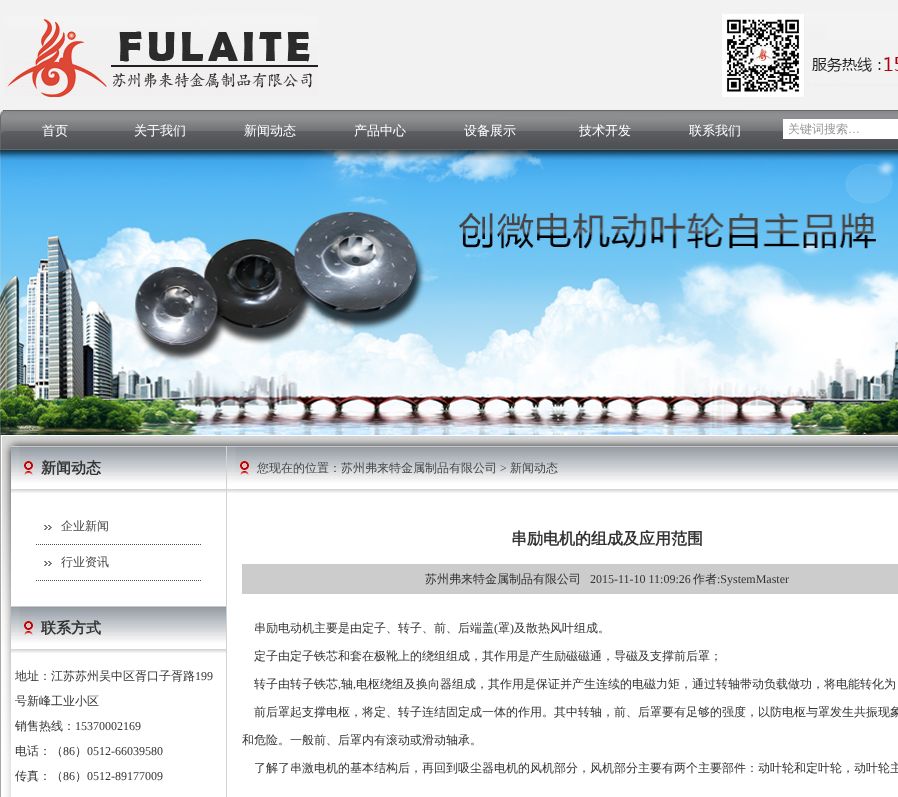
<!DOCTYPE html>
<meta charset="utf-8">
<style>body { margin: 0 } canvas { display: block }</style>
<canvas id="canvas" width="898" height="797"></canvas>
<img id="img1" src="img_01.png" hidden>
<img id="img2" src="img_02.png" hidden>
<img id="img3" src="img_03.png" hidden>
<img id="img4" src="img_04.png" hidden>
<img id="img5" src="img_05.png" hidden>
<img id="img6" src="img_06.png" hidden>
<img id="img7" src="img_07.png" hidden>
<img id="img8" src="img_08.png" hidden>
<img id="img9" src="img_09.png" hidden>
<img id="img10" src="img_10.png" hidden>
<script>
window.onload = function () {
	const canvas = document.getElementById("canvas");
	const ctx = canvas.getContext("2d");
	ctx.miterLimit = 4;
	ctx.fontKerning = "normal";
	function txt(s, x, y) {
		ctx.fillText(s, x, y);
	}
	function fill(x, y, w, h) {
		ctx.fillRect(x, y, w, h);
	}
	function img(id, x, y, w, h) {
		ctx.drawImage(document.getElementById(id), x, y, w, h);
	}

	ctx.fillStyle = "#F2F2F2";
	fill(0, 0, 898, 797);
	img("img1", 4, 15, 314, 82);
	img("img2", 721, 13, 177, 85);
	img("img3", 0, 110, 898, 40);
	ctx.fillStyle = "#FFFFFF";
	fill(783, 119, 115, 20);
	img("img4", 0, 150, 898, 285);
	img("img5", 0, 150, 898, 10);
	fill(1, 435, 897, 362);
	ctx.fillStyle = "#A6A6A6";
	fill(0, 435, 1, 362);
	img("img6", 2, 436, 896, 10);
	img("img7", 2, 446, 9, 351);
	ctx.fillStyle = "#D2D2D2";
	fill(226, 446, 1, 351);
	img("img8", 11, 446, 215, 47);
	img("img9", 44, 525, 8, 5);
	ctx.beginPath();
	ctx.moveTo(36, 544.5);
	ctx.lineTo(201, 544.5);
	ctx.strokeStyle = "#535353";
	ctx.setLineDash([1, 1]);
	ctx.stroke();
	img("img9", 44, 561, 8, 5);
	ctx.beginPath();
	ctx.moveTo(36, 580.5);
	ctx.lineTo(201, 580.5);
	ctx.stroke();
	img("img8", 11, 606, 215, 47);
	img("img10", 227, 446, 671, 47);
	ctx.fillStyle = "#CCCCCC";
	fill(242, 564, 656, 30);
	ctx.font = "500 13px WenQuanYi Zen Hei";
	ctx.fillStyle = "#FFFFFF";
	txt("首页", 42, 135);
	txt("关于我们", 134, 135);
	txt("新闻动态", 244, 135);
	txt("产品中心", 354, 135);
	txt("设备展示", 464, 135);
	txt("技术开发", 579, 135);
	txt("联系我们", 689, 135);
	ctx.font = "500 12px WenQuanYi Zen Hei";
	ctx.fillStyle = "#999999";
	txt("关键词搜索", 788, 133);
	ctx.font = "12px Liberation Sans";
	txt("…", 848, 133);
	ctx.font = "bold 15px WenQuanYi Zen Hei";
	ctx.fillStyle = "#333333";
	txt("新闻动态", 41, 473);
	ctx.font = "500 12px WenQuanYi Zen Hei";
	ctx.fillStyle = "#464646";
	txt("企业新闻", 61, 530);
	txt("行业资讯", 61, 566);
	ctx.font = "bold 15px WenQuanYi Zen Hei";
	ctx.fillStyle = "#333333";
	txt("联系方式", 41, 633);
	ctx.font = "500 12px WenQuanYi Zen Hei";
	txt("地址：江苏苏州吴中区胥口子胥路", 15, 680);
	ctx.font = "12px Liberation Serif";
	txt("199", 195, 680);
	ctx.font = "500 12px WenQuanYi Zen Hei";
	txt("号新峰工业小区", 15, 705);
	txt("销售热线：", 15, 730);
	ctx.font = "12px Liberation Serif";
	txt("15370002169", 75, 730);
	ctx.font = "500 12px WenQuanYi Zen Hei";
	txt("电话：（", 15, 755);
	ctx.font = "12px Liberation Serif";
	txt("86", 63, 755);
	ctx.font = "500 12px WenQuanYi Zen Hei";
	txt("）", 75, 755);
	ctx.font = "12px Liberation Serif";
	txt("0512-66039580", 87, 755);
	ctx.font = "500 12px WenQuanYi Zen Hei";
	txt("传真：（", 15, 780);
	ctx.font = "12px Liberation Serif";
	txt("86", 63, 780);
	ctx.font = "500 12px WenQuanYi Zen Hei";
	txt("）", 75, 780);
	ctx.font = "12px Liberation Serif";
	txt("0512-89177009", 87, 780);
	ctx.font = "500 12px WenQuanYi Zen Hei";
	ctx.fillStyle = "#464646";
	txt("您现在的位置：苏州弗来特金属制品有限公司", 257, 472);
	ctx.font = "12px Liberation Serif";
	txt(">", 500, 472);
	ctx.font = "500 12px WenQuanYi Zen Hei";
	txt("新闻动态", 510, 472);
	ctx.font = "bold 16px WenQuanYi Zen Hei";
	ctx.fillStyle = "#333333";
	txt("串励电机的组成及应用范围", 511, 544);
	ctx.font = "500 12px WenQuanYi Zen Hei";
	txt("苏州弗来特金属制品有限公司", 425, 583);
	ctx.font = "12px Liberation Serif";
	txt("2015-11-10 11:09:26", 590, 583);
	ctx.font = "500 12px WenQuanYi Zen Hei";
	txt("作者", 693, 583);
	ctx.font = "12px Liberation Serif";
	txt(":SystemMaster", 717, 583);
	ctx.font = "500 12px WenQuanYi Zen Hei";
	txt("串励电动机主要是由定子、转子、前、后端盖", 254, 632);
	ctx.font = "12px Liberation Serif";
	txt("(", 494, 632);
	ctx.font = "500 12px WenQuanYi Zen Hei";
	txt("罩", 498, 632);
	ctx.font = "12px Liberation Serif";
	txt(")", 510, 632);
	ctx.font = "500 12px WenQuanYi Zen Hei";
	txt("及散热风叶组成。", 514, 632);
	txt("定子由定子铁芯和套在极靴上的绕组组成，其作用是产生励磁磁通，导磁及支撑前后罩；", 254, 660);
	txt("转子由转子铁芯", 254, 688);
	ctx.font = "12px Liberation Serif";
	txt(",", 338, 688);
	ctx.font = "500 12px WenQuanYi Zen Hei";
	txt("轴", 341, 688);
	ctx.font = "12px Liberation Serif";
	txt(",", 353, 688);
	ctx.font = "500 12px WenQuanYi Zen Hei";
	txt("电枢绕组及换向器组成，其作用是保证并产生连续的电磁力矩，通过转轴带动负载做功，将电能转化为", 356, 688);
	txt("前后罩起支撑电枢，将定、转子连结固定成一体的作用。其中转轴，前、后罩要有足够的强度，以防电枢与罩发生共振现象", 254, 716);
	txt("和危险。一般前、后罩内有滚动或滑动轴承。", 242, 744);
	txt("了解了串激电机的基本结构后，再回到吸尘器电机的风机部分，风机部分主要有两个主要部件：动叶轮和定叶轮，动叶轮主", 254, 772);
};
</script>
